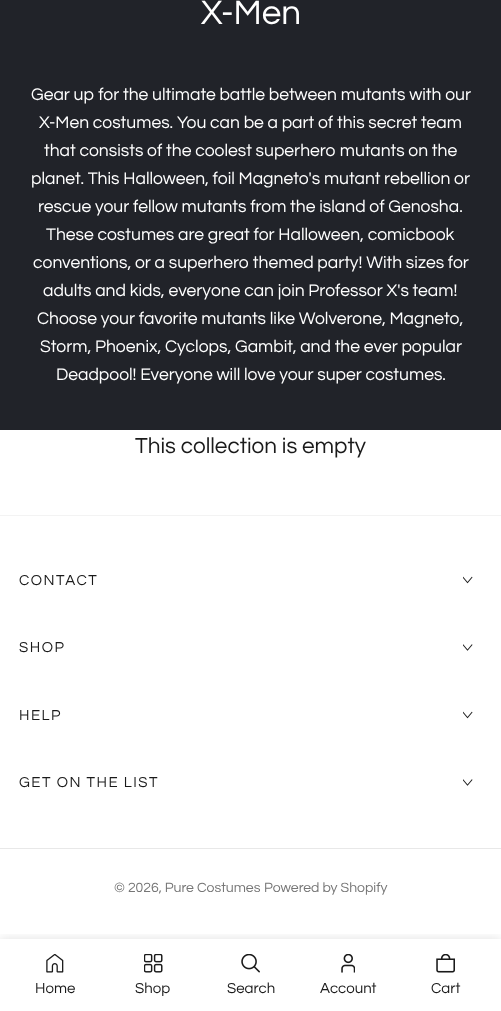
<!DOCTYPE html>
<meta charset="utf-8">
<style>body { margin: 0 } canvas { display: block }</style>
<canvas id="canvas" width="501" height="1011"></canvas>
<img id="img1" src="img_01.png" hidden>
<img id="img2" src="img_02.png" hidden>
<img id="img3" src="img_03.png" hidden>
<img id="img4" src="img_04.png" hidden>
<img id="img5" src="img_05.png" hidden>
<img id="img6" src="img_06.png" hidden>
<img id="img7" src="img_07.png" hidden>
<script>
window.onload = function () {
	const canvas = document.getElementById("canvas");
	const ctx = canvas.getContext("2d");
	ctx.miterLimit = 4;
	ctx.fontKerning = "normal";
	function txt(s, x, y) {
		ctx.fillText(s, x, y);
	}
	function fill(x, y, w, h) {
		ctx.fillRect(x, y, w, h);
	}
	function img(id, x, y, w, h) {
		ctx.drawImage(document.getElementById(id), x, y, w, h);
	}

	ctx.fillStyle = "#FFFFFF";
	fill(0, 0, 501, 1011);
	ctx.fillStyle = "#212329";
	fill(0, 0, 501, 430);
	ctx.fillStyle = "#F3F3F3";
	fill(0, 515, 501, 1);
	img("img1", 463, 576, 10, 8);
	img("img2", 463, 644, 10, 7);
	img("img1", 463, 711, 10, 8);
	img("img2", 463, 779, 10, 7);
	ctx.fillStyle = "#E8E8E8";
	fill(0, 848, 501, 1);
	ctx.save();
	ctx.beginPath();
	ctx.rect(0, 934, 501, 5);
	ctx.clip();
	ctx.fillStyle = "rgba(0, 0, 0, 0.12)";
	ctx.filter = "blur(5.5px)";
	ctx.beginPath();
	ctx.rect(0, 939, 501, 72);
	ctx.fill();
	ctx.filter = "none";
	ctx.restore();
	img("img3", 46, 954, 18, 19);
	img("img4", 144, 954, 19, 19);
	img("img5", 241, 954, 19, 19);
	img("img6", 341, 954, 14, 19);
	img("img7", 436, 954, 19, 19);
	ctx.font = "35px Questrial";
	ctx.fillStyle = "#FFFFFF";
	txt("X-Men", 201, 24);
	ctx.font = "17.5px Questrial";
	txt("Gear up for the ultimate battle between mutants with our", 31, 100);
	txt("X-Men costumes. You can be a part of this secret team", 39, 128);
	txt("that consists of the coolest superhero mutants on the", 44, 156);
	txt("planet. This Halloween, foil Magneto's mutant rebellion or", 31, 184);
	txt("rescue your fellow mutants from the island of Genosha.", 38, 212);
	txt("These costumes are great for Halloween, comicbook", 46, 240);
	txt("conventions, or a superhero themed party! With sizes for", 33, 268);
	txt("adults and kids, everyone can join Professor X's team!", 43, 296);
	txt("Choose your favorite mutants like Wolverone, Magneto,", 37, 324);
	txt("Storm, Phoenix, Cyclops, Gambit, and the ever popular", 40, 352);
	txt("Deadpool! Everyone will love your super costumes.", 56, 380);
	ctx.font = "22.5px Questrial";
	ctx.fillStyle = "#1A1A1A";
	txt("This collection is empty", 135, 453);
	ctx.letterSpacing = "1.5px";
	ctx.font = "15px Questrial";
	txt("CONTACT", 19, 585);
	txt("SHOP", 19, 652);
	txt("HELP", 19, 720);
	txt("GET ON THE LIST", 19, 787);
	ctx.letterSpacing = "0px";
	ctx.font = "14px Questrial";
	ctx.fillStyle = "#767676";
	txt("© 2026, Pure Costumes", 114, 892);
	txt("Powered by Shopify", 264, 892);
	ctx.font = "15px Questrial";
	ctx.fillStyle = "#1A1A1A";
	txt("Home", 35, 993);
	txt("Shop", 135, 993);
	txt("Search", 227, 993);
	txt("Account", 320, 993);
	txt("Cart", 431, 993);
};
</script>
